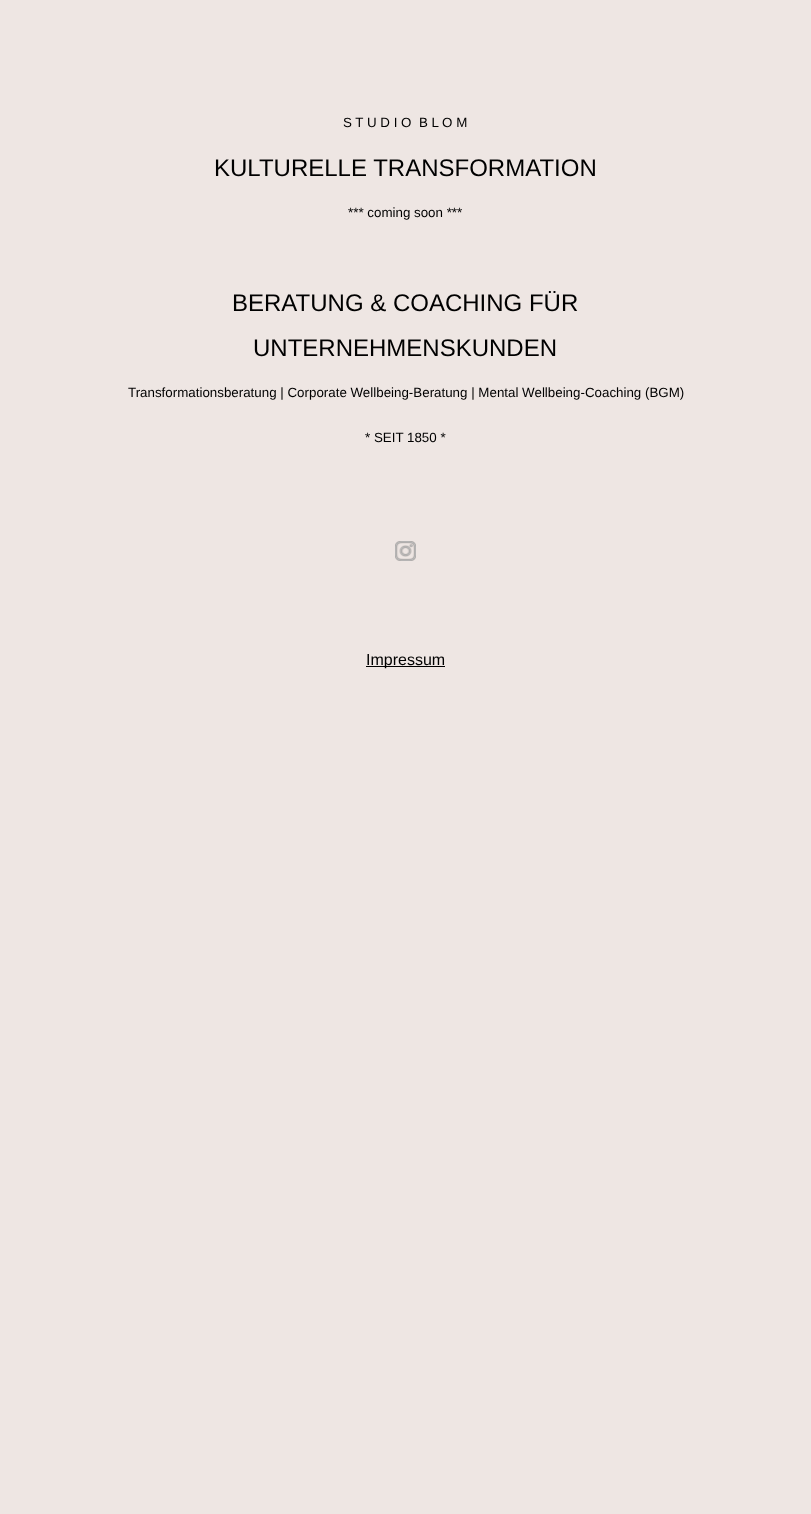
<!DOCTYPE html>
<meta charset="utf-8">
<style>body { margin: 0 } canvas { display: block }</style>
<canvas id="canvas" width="811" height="1514"></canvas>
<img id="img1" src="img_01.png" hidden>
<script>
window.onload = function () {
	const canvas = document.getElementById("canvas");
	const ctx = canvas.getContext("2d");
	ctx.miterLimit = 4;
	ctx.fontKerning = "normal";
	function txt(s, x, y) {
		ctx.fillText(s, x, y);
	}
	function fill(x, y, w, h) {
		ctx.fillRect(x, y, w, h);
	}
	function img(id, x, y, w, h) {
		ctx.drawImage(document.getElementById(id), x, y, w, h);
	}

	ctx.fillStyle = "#EEE6E3";
	fill(0, 0, 811, 1514);
	img("img1", 395, 541, 21, 20);
	ctx.fillStyle = "#000000";
	fill(366, 666, 79, 1);
	ctx.font = "13.35px Liberation Sans";
	txt("S T U D I O  B L O M", 343, 127);
	ctx.font = "24px Liberation Sans";
	txt("KULTURELLE TRANSFORMATION", 214, 176);
	ctx.font = "13.35px Liberation Sans";
	txt("*** coming soon ***", 348, 217);
	ctx.font = "24px Liberation Sans";
	txt("BERATUNG & COACHING FÜR", 232, 311);
	txt("UNTERNEHMENSKUNDEN", 253, 356);
	ctx.font = "13.35px Liberation Sans";
	txt("Transformationsberatung | Corporate Wellbeing-Beratung | Mental Wellbeing-Coaching (BGM)", 128, 397);
	txt("* SEIT 1850 *", 365, 442);
	ctx.font = "16px Liberation Sans";
	txt("Impressum", 366, 665);
};
</script>
